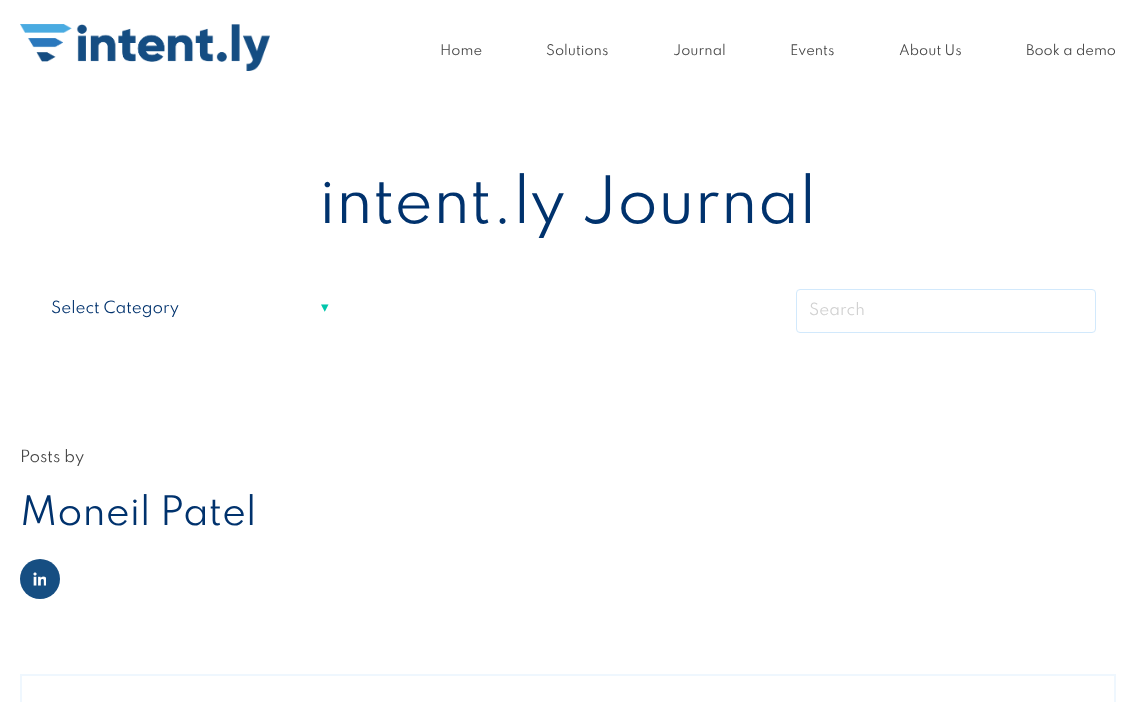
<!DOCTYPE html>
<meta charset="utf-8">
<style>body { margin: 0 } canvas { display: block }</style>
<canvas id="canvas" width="1136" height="702"></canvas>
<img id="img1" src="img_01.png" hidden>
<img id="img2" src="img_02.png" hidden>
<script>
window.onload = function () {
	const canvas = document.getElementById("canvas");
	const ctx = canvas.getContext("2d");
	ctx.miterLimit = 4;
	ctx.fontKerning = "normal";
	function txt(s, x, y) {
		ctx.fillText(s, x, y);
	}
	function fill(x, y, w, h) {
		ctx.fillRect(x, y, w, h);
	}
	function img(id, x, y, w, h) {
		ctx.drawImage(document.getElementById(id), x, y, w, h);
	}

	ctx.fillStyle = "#FFFFFF";
	fill(0, 0, 1136, 702);
	img("img1", 20, 24, 250, 47);
	ctx.beginPath();
	ctx.roundRect(796.5, 289.5, 299, 43, 3.5);
	ctx.strokeStyle = "#D2E9FC";
	ctx.stroke();
	ctx.fillStyle = "#164E82";
	ctx.beginPath();
	ctx.arc(40, 579, 20, 0, Math.PI * 2);
	ctx.fill();
	img("img2", 33, 572, 13, 14);
	ctx.strokeStyle = "#EFF7FE";
	ctx.lineWidth = 2;
	ctx.strokeRect(21, 675, 1094, 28);
	ctx.font = "100 13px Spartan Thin";
	ctx.fillStyle = "#444444";
	txt("Home", 440, 55);
	txt("Solutions", 546, 55);
	txt("Journal", 673, 55);
	txt("Events", 790, 55);
	txt("About Us", 899, 55);
	txt("Book a demo", 1026, 55);
	ctx.font = "100 58px Spartan Thin";
	ctx.fillStyle = "#00326D";
	txt("intent.ly Journal", 319, 223);
	ctx.font = "100 15px Spartan Thin";
	txt("Select Category", 51, 313);
	ctx.font = "15px DejaVu Sans";
	ctx.fillStyle = "#00C6AB";
	txt("▾", 321, 312);
	ctx.font = "100 15px Spartan Thin";
	ctx.fillStyle = "#D0D0D0";
	txt("Search", 809, 315);
	ctx.fillStyle = "#444444";
	txt("Posts by", 20, 462);
	ctx.font = "100 36px Spartan Thin";
	ctx.fillStyle = "#00326D";
	txt("Moneil Patel", 20, 525);
};
</script>
